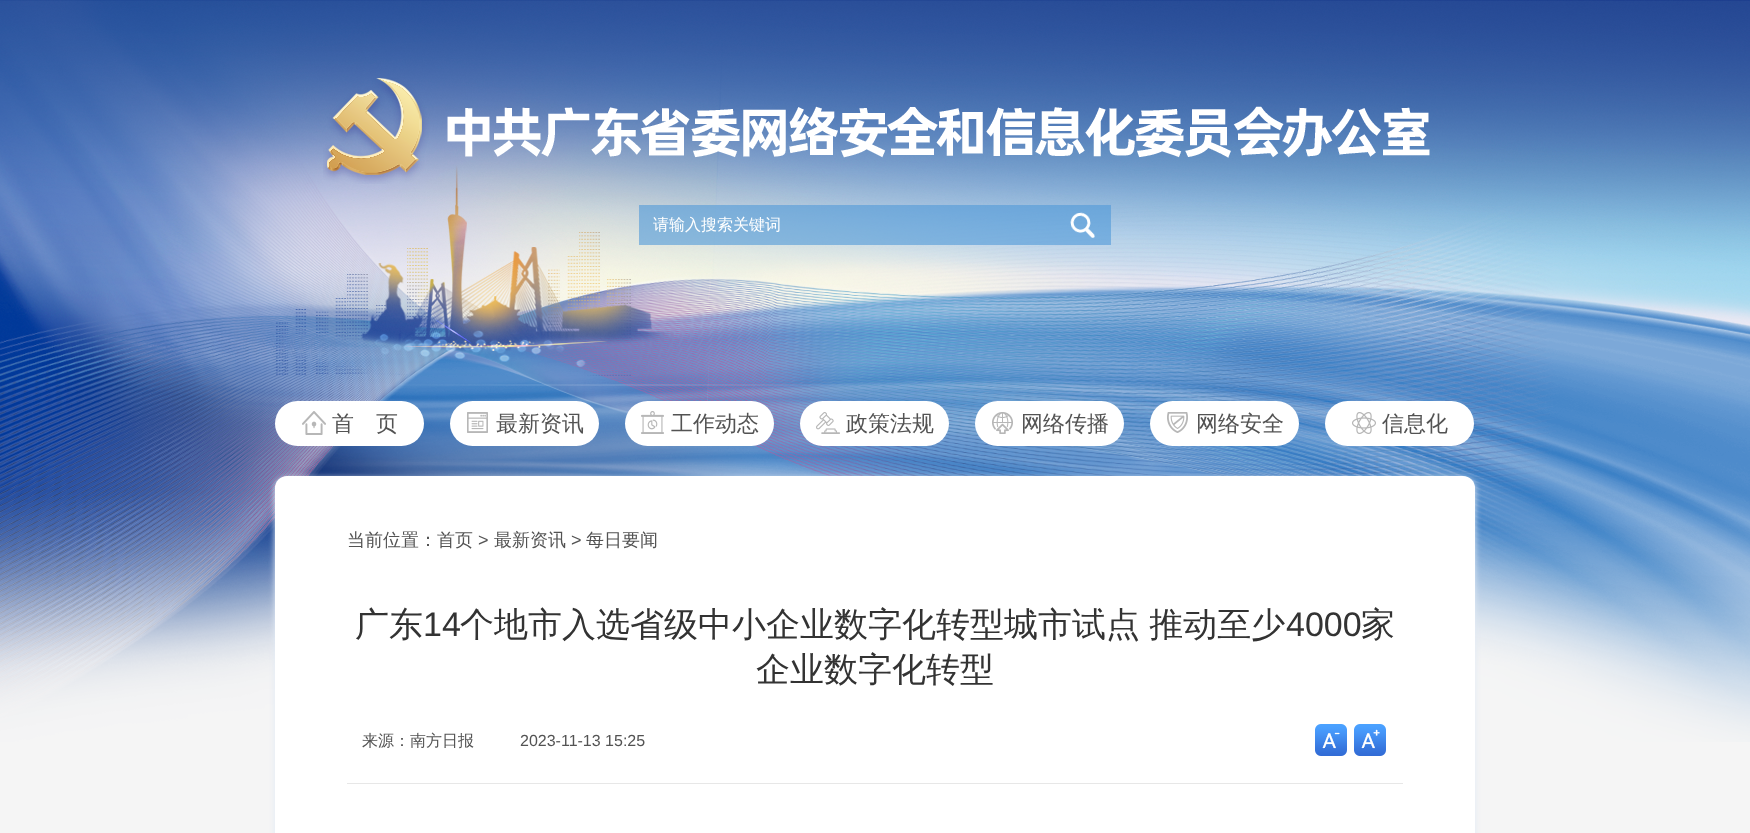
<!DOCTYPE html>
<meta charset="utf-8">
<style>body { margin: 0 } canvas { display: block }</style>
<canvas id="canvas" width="1750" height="833"></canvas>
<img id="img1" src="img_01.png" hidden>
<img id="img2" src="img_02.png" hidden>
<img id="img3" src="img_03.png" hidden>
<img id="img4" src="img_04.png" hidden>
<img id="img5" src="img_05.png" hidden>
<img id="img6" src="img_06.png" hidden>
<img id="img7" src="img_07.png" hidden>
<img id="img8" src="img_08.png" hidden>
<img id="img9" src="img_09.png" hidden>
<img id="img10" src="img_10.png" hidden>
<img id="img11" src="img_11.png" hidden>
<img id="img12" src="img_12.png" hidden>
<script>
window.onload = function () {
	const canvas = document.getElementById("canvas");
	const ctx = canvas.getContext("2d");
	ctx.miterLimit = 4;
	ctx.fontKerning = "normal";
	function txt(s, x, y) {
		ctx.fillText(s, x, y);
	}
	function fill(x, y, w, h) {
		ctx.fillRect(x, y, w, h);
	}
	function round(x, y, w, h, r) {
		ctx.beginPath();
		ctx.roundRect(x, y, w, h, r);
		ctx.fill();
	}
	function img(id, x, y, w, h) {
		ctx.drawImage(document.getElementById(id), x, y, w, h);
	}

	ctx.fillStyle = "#F5F5F5";
	fill(0, 0, 1750, 833);
	img("img1", 0, 0, 1750, 742);
	img("img2", 323, 78, 1107, 106);
	ctx.fillStyle = "rgba(76, 151, 216, 0.59)";
	fill(639, 205, 472, 40);
	img("img3", 1070, 212, 25, 27);
	ctx.fillStyle = "#FFFFFF";
	round(275, 401, 149, 45, 22.5);
	img("img4", 302, 411, 24, 24);
	round(450, 401, 149, 45, 22.5);
	img("img5", 467, 412, 21, 21);
	round(625, 401, 149, 45, 22.5);
	img("img6", 641, 411, 23, 23);
	round(800, 401, 149, 45, 22.5);
	img("img7", 816, 412, 24, 22);
	round(975, 401, 149, 45, 22.5);
	img("img8", 992, 412, 21, 22);
	round(1150, 401, 149, 45, 22.5);
	img("img9", 1167, 412, 21, 21);
	round(1325, 401, 149, 45, 22.5);
	img("img10", 1352, 412, 24, 22);
	ctx.fillStyle = "#E0E9F5";
	ctx.filter = "blur(3px)";
	ctx.beginPath();
	ctx.roundRect(275, 478, 1200, 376, 12);
	ctx.fill();
	ctx.filter = "none";
	ctx.fillStyle = "#FFFFFF";
	round(275, 476, 1200, 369, 12);
	ctx.fillStyle = "#E7E7E7";
	fill(347, 783, 1056, 1);
	img("img11", 1315, 724, 32, 32);
	img("img12", 1354, 724, 32, 32);
	ctx.font = "500 16px WenQuanYi Zen Hei";
	ctx.fillStyle = "#FFFFFF";
	txt("请输入搜索关键词", 653, 230);
	ctx.font = "500 22px WenQuanYi Zen Hei";
	ctx.fillStyle = "#535353";
	txt("首", 332, 431);
	txt("页", 376, 431);
	txt("最新资讯", 496, 431);
	txt("工作动态", 671, 431);
	txt("政策法规", 846, 431);
	txt("网络传播", 1021, 431);
	txt("网络安全", 1196, 431);
	txt("信息化", 1382, 431);
	ctx.font = "500 18px WenQuanYi Zen Hei";
	txt("当前位置：首页", 347, 546);
	ctx.font = "18px Liberation Sans";
	txt(">", 478, 546);
	ctx.font = "500 18px WenQuanYi Zen Hei";
	txt("最新资讯", 494, 546);
	ctx.font = "18px Liberation Sans";
	txt(">", 571, 546);
	ctx.font = "500 18px WenQuanYi Zen Hei";
	txt("每日要闻", 586, 546);
	ctx.font = "500 34px WenQuanYi Zen Hei";
	ctx.fillStyle = "#333333";
	txt("广东", 355, 636);
	ctx.font = "34px Liberation Sans";
	txt("14", 423, 636);
	ctx.wordSpacing = "-1px";
	ctx.font = "500 34px WenQuanYi Zen Hei";
	txt("个地市入选省级中小企业数字化转型城市试点 推动至少", 460, 636);
	ctx.wordSpacing = "0px";
	ctx.font = "34px Liberation Sans";
	txt("4000", 1286, 636);
	ctx.font = "500 34px WenQuanYi Zen Hei";
	txt("家", 1361, 636);
	txt("企业数字化转型", 756, 681);
	ctx.font = "500 16px WenQuanYi Zen Hei";
	ctx.fillStyle = "#535353";
	txt("来源：南方日报", 362, 746);
	ctx.font = "16px Liberation Sans";
	txt("2023-11-13 15:25", 520, 746);
};
</script>
